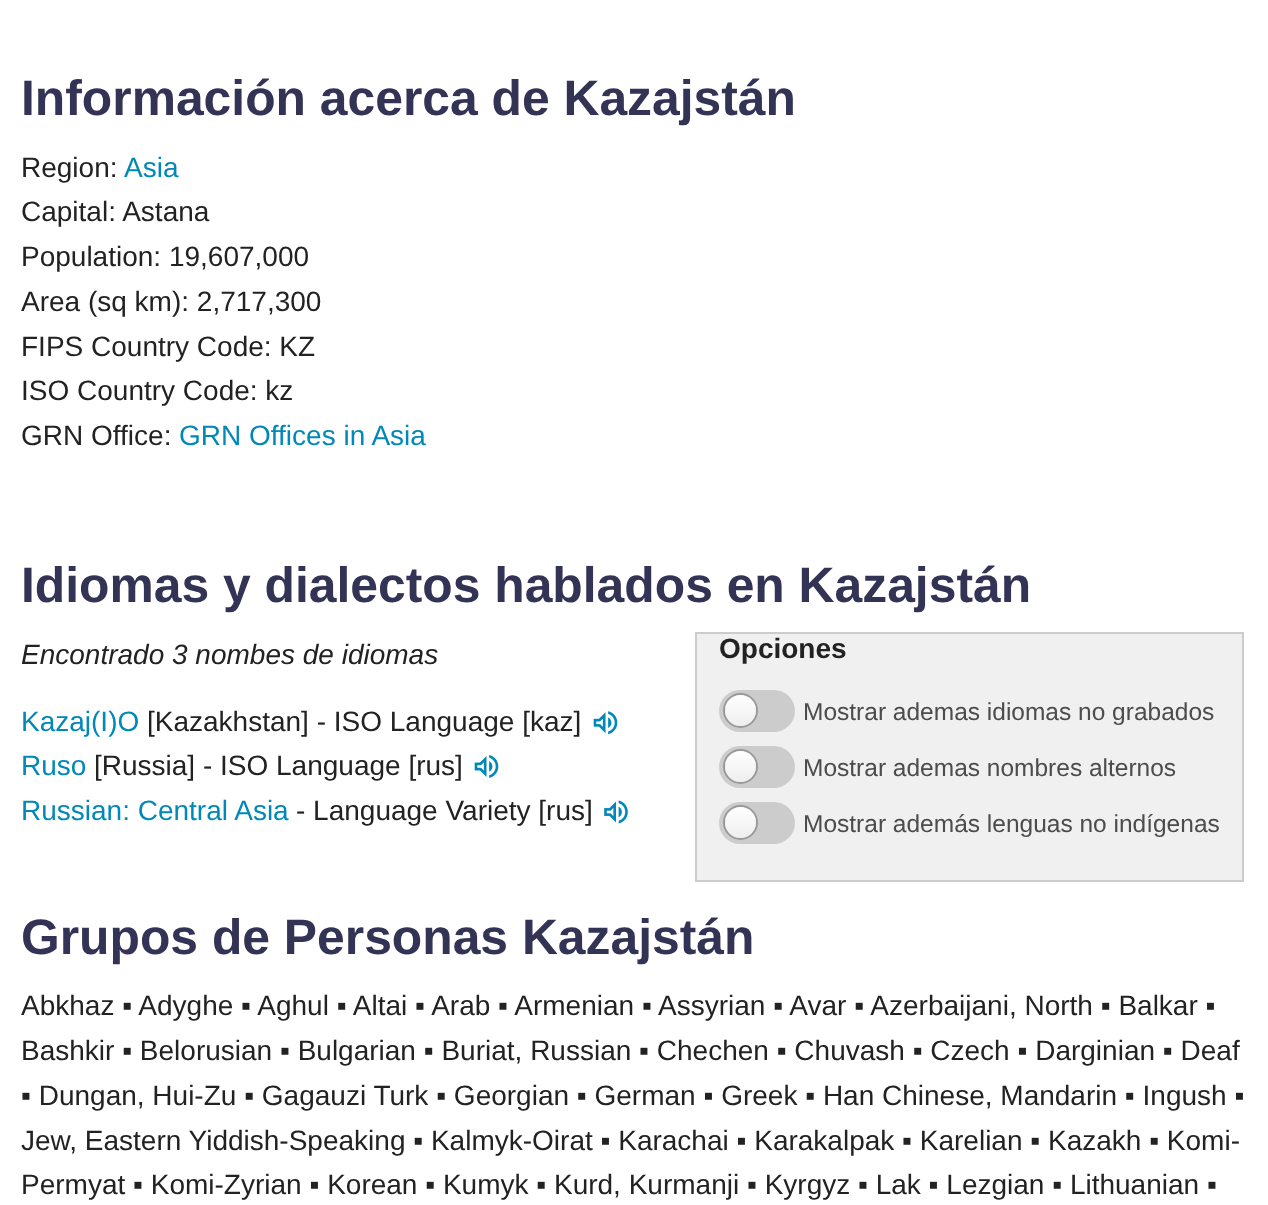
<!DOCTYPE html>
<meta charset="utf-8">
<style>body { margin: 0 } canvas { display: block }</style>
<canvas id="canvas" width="1268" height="1205"></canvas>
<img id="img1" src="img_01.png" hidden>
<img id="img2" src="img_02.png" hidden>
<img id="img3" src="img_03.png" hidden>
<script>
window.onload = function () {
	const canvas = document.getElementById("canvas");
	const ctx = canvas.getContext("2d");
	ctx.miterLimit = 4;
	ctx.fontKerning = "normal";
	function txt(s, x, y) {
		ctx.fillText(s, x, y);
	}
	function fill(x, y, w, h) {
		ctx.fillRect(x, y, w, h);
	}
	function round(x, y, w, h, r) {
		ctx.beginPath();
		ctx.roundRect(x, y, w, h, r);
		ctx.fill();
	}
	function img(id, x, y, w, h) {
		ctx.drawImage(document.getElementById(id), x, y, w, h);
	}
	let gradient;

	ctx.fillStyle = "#FFFFFF";
	fill(0, 0, 1268, 1205);
	img("img1", 593, 711, 25, 24);
	img("img2", 474, 755, 25, 23);
	img("img3", 604, 800, 24, 24);
	ctx.fillStyle = "#F0F0F0";
	ctx.beginPath();
	ctx.rect(696, 633, 547, 248);
	ctx.fill();
	ctx.strokeStyle = "#CCCCCC";
	ctx.lineWidth = 2;
	ctx.stroke();
	ctx.fillStyle = "#CCCCCC";
	round(719, 690, 76, 42, 21);
	ctx.beginPath();
	ctx.arc(740.5, 710.5, 16.5, 0, Math.PI * 2);
	ctx.strokeStyle = "#999999";
	ctx.stroke();
	gradient = ctx.createLinearGradient(740, 695, 740, 726);
	gradient.addColorStop(0, "#FFFFFF");
	gradient.addColorStop(1, "#EEEEEE");
	ctx.fillStyle = gradient;
	ctx.beginPath();
	ctx.arc(740.5, 710.5, 15.5, 0, Math.PI * 2);
	ctx.fill();
	ctx.fillStyle = "#CCCCCC";
	round(719, 746, 76, 42, 21);
	ctx.beginPath();
	ctx.arc(740.5, 766.5, 16.5, 0, Math.PI * 2);
	ctx.stroke();
	gradient = ctx.createLinearGradient(740, 751, 740, 782);
	gradient.addColorStop(0, "#FFFFFF");
	gradient.addColorStop(1, "#EEEEEE");
	ctx.fillStyle = gradient;
	ctx.beginPath();
	ctx.arc(740.5, 766.5, 15.5, 0, Math.PI * 2);
	ctx.fill();
	ctx.fillStyle = "#CCCCCC";
	round(719, 802, 76, 42, 21);
	ctx.beginPath();
	ctx.arc(740.5, 822.5, 16.5, 0, Math.PI * 2);
	ctx.stroke();
	gradient = ctx.createLinearGradient(740, 807, 740, 838);
	gradient.addColorStop(0, "#FFFFFF");
	gradient.addColorStop(1, "#EEEEEE");
	ctx.fillStyle = gradient;
	ctx.beginPath();
	ctx.arc(740.5, 822.5, 15.5, 0, Math.PI * 2);
	ctx.fill();
	ctx.font = "bold 49.8px Liberation Sans";
	ctx.fillStyle = "#333355";
	txt("Información acerca de Kazajstán", 21, 115);
	ctx.font = "28px Liberation Sans";
	ctx.fillStyle = "#222222";
	txt("Region:", 21, 177);
	ctx.fillStyle = "#0088B8";
	txt("Asia", 124, 177);
	ctx.fillStyle = "#222222";
	txt("Capital: Astana", 21, 221);
	txt("Population: 19,607,000", 21, 266);
	txt("Area (sq km): 2,717,300", 21, 311);
	txt("FIPS Country Code: KZ", 21, 356);
	txt("ISO Country Code: kz", 21, 400);
	txt("GRN Office:", 21, 445);
	ctx.fillStyle = "#0088B8";
	txt("GRN Offices in Asia", 179, 445);
	ctx.font = "bold 49.8px Liberation Sans";
	ctx.fillStyle = "#333355";
	txt("Idiomas y dialectos hablados en Kazajstán", 21, 602);
	ctx.font = "italic 28px Liberation Sans";
	ctx.fillStyle = "#222222";
	txt("Encontrado 3 nombes de idiomas", 21, 664);
	ctx.font = "28px Liberation Sans";
	ctx.fillStyle = "#0088B8";
	txt("Kazaj(I)O", 21, 731);
	ctx.fillStyle = "#222222";
	txt("[Kazakhstan] - ISO Language [kaz]", 147, 731);
	ctx.fillStyle = "#0088B8";
	txt("Ruso", 21, 775);
	ctx.fillStyle = "#222222";
	txt("[Russia] - ISO Language [rus]", 94, 775);
	ctx.fillStyle = "#0088B8";
	txt("Russian: Central Asia", 21, 820);
	ctx.fillStyle = "#222222";
	txt("- Language Variety [rus]", 296, 820);
	ctx.font = "bold 28px Liberation Sans";
	txt("Opciones", 719, 658);
	ctx.font = "24.5px Liberation Sans";
	ctx.fillStyle = "#4D4C4C";
	txt("Mostrar ademas idiomas no grabados", 803, 720);
	txt("Mostrar ademas nombres alternos", 803, 776);
	txt("Mostrar además lenguas no indígenas", 803, 832);
	ctx.font = "bold 49.8px Liberation Sans";
	ctx.fillStyle = "#333355";
	txt("Grupos de Personas Kazajstán", 21, 954);
	ctx.font = "28px Liberation Sans";
	ctx.fillStyle = "#222222";
	txt("Abkhaz ▪ Adyghe ▪ Aghul ▪ Altai ▪ Arab ▪ Armenian ▪ Assyrian ▪ Avar ▪ Azerbaijani, North ▪ Balkar ▪", 21, 1015);
	txt("Bashkir ▪ Belorusian ▪ Bulgarian ▪ Buriat, Russian ▪ Chechen ▪ Chuvash ▪ Czech ▪ Darginian ▪ Deaf", 21, 1060);
	txt("▪ Dungan, Hui-Zu ▪ Gagauzi Turk ▪ Georgian ▪ German ▪ Greek ▪ Han Chinese, Mandarin ▪ Ingush ▪", 21, 1105);
	txt("Jew, Eastern Yiddish-Speaking ▪ Kalmyk-Oirat ▪ Karachai ▪ Karakalpak ▪ Karelian ▪ Kazakh ▪ Komi-", 21, 1150);
	txt("Permyat ▪ Komi-Zyrian ▪ Korean ▪ Kumyk ▪ Kurd, Kurmanji ▪ Kyrgyz ▪ Lak ▪ Lezgian ▪ Lithuanian ▪", 21, 1194);
};
</script>
